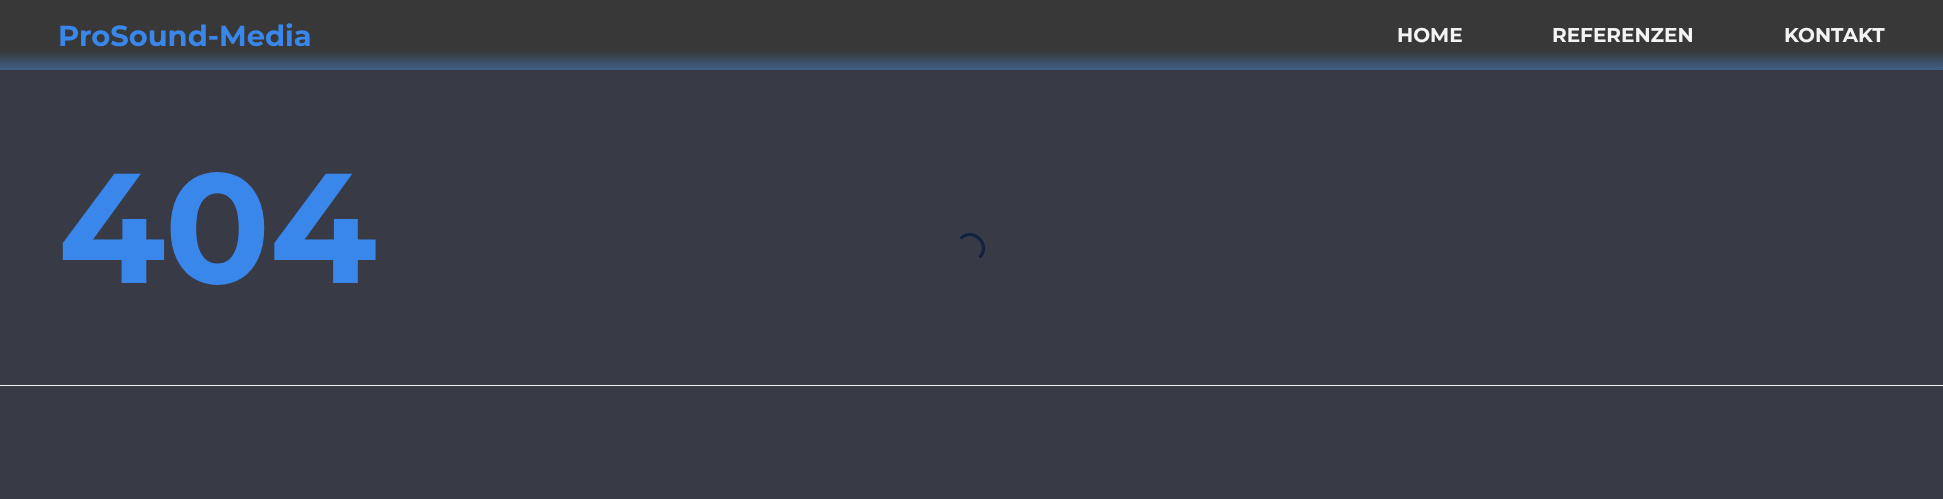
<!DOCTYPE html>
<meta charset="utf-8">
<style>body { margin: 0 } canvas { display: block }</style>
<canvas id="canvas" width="1943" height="499"></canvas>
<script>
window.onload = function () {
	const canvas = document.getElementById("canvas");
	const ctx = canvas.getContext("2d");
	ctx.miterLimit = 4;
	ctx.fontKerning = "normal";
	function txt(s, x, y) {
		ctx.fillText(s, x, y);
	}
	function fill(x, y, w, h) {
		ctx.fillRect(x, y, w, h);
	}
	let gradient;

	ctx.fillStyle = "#383B45";
	fill(0, 0, 1943, 499);
	gradient = ctx.createLinearGradient(972, 0, 972, 70);
	gradient.addColorStop(0.72, "#383838");
	gradient.addColorStop(1, "#3F608A");
	ctx.fillStyle = gradient;
	fill(0, 0, 1943, 70);
	ctx.fillStyle = "#F3F3F3";
	fill(0, 385, 1943, 1);
	ctx.beginPath();
	ctx.moveTo(960.5, 238.5);
	ctx.bezierCurveTo(973, 226, 992, 245, 979.5, 257.5);
	ctx.strokeStyle = "#10223F";
	ctx.lineWidth = 3;
	ctx.stroke();
	ctx.font = "bold 29px Montserrat";
	ctx.fillStyle = "#3A87EC";
	txt("ProSound-Media", 58, 46);
	ctx.font = "bold 20px Montserrat";
	ctx.fillStyle = "#F3F3F3";
	txt("HOME", 1397, 42);
	txt("REFERENZEN", 1552, 42);
	txt("KONTAKT", 1784, 42);
	ctx.letterSpacing = "-1px";
	ctx.font = "bold 156px Montserrat";
	ctx.fillStyle = "#3A87EC";
	txt("404", 58, 283);
};
</script>
